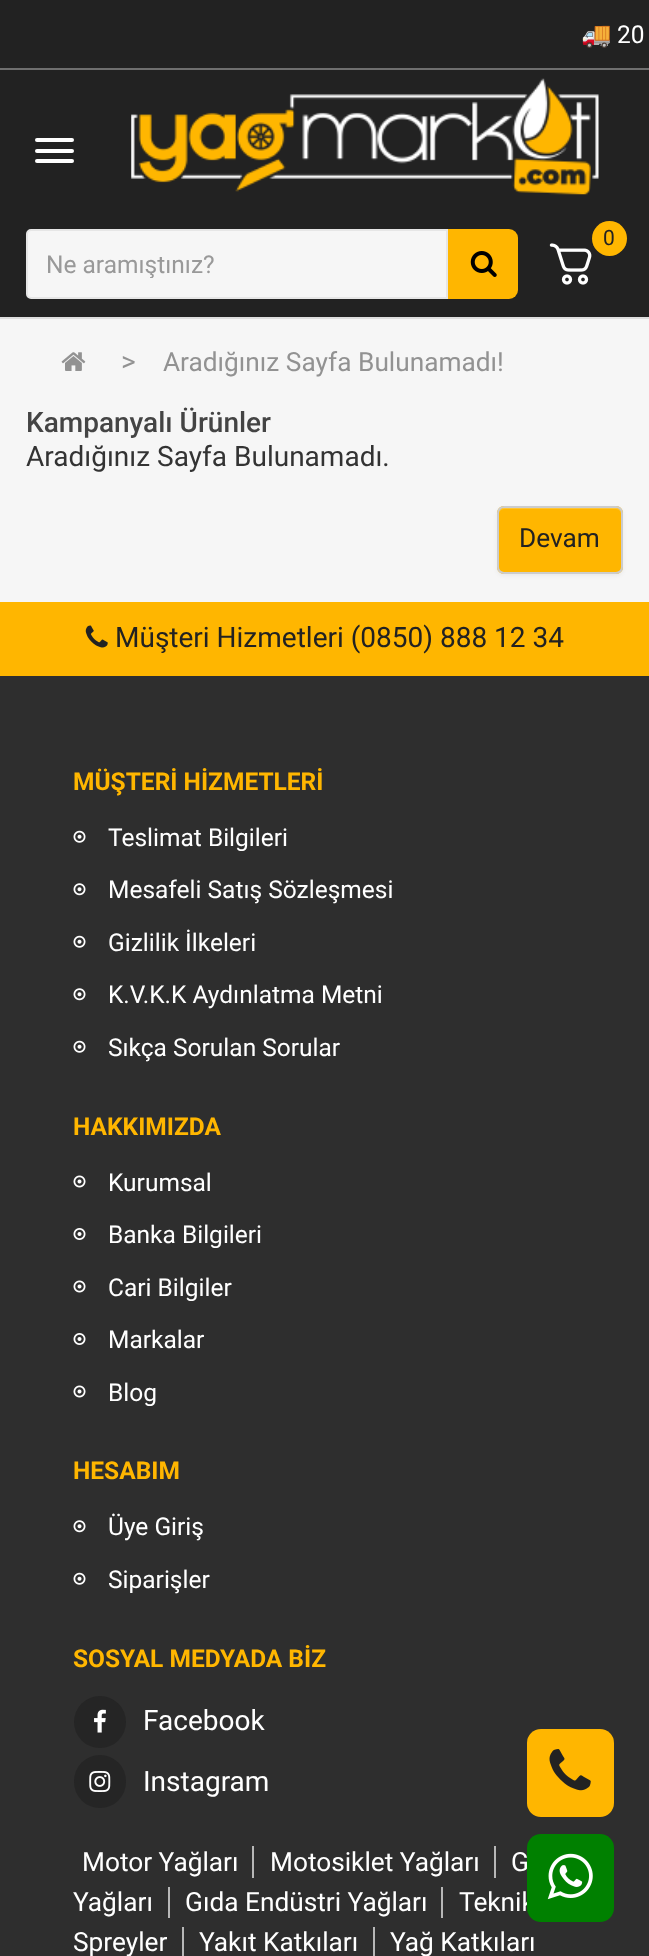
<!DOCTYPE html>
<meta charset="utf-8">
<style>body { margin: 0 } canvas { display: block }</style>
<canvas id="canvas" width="649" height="1956"></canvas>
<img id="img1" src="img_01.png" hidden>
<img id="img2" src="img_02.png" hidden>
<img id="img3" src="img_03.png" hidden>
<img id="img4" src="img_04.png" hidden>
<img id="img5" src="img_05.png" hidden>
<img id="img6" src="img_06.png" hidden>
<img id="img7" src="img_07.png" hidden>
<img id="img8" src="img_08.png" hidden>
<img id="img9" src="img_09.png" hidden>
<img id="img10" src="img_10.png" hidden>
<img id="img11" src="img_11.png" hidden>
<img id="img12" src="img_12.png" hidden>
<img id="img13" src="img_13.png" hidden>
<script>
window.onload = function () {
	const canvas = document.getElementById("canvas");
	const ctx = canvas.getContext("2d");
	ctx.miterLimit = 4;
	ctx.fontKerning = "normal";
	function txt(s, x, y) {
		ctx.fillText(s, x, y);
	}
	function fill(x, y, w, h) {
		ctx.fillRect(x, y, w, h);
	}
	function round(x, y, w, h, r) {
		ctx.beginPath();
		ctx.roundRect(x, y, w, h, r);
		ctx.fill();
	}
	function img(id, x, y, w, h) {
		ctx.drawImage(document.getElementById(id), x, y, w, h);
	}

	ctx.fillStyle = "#F6F6F6";
	fill(0, 0, 649, 1956);
	ctx.fillStyle = "#222222";
	fill(0, 0, 649, 68);
	ctx.fillStyle = "#6F6F6F";
	fill(0, 68, 649, 2);
	ctx.fillStyle = "#DEDEDE";
	fill(0, 317, 649, 2);
	ctx.fillStyle = "#222222";
	fill(0, 70, 649, 247);
	ctx.fillStyle = "#FFFFFF";
	round(35, 138, 39, 4, 2);
	round(35, 149, 39, 4, 2);
	round(35, 159, 39, 4, 2);
	img("img1", 131, 78, 468, 117);
	ctx.fillStyle = "#FFB600";
	ctx.beginPath();
	ctx.arc(609.5, 238.5, 17.5, 0, Math.PI * 2);
	ctx.fill();
	img("img2", 549, 243, 43, 42);
	ctx.fillStyle = "#F6F6F6";
	ctx.beginPath();
	ctx.roundRect(27, 230, 420, 68, [4, 0, 0, 4]);
	ctx.fill();
	ctx.strokeStyle = "#E6E6E6";
	ctx.lineWidth = 2;
	ctx.stroke();
	ctx.fillStyle = "#FFB600";
	ctx.beginPath();
	ctx.roundRect(448, 229, 70, 70, [0, 9, 9, 0]);
	ctx.fill();
	img("img3", 470, 251, 27, 26);
	img("img4", 61, 352, 25, 19);
	ctx.fillStyle = "rgba(0, 0, 0, 0.05)";
	ctx.filter = "blur(2px)";
	ctx.beginPath();
	ctx.roundRect(497, 508, 126, 68, 7);
	ctx.fill();
	ctx.filter = "none";
	ctx.fillStyle = "#FFB600";
	round(497, 506, 126, 68, 7);
	ctx.fillStyle = "#FFC533";
	ctx.beginPath();
	ctx.moveTo(504, 509);
	ctx.lineTo(616, 509);
	ctx.bezierCurveTo(619, 509, 621, 512, 621, 514);
	ctx.bezierCurveTo(621, 503, 602, 508, 597, 508);
	ctx.lineTo(523, 508);
	ctx.bezierCurveTo(518, 508, 499, 503, 499, 514);
	ctx.bezierCurveTo(499, 512, 501, 509, 504, 509);
	ctx.closePath();
	ctx.fill();
	ctx.beginPath();
	ctx.roundRect(498, 507, 124, 66, 6);
	ctx.strokeStyle = "#CCCCCC";
	ctx.stroke();
	ctx.fillStyle = "#FFB600";
	fill(0, 602, 649, 74);
	img("img5", 85, 625, 23, 23);
	ctx.fillStyle = "#2E2E2E";
	fill(0, 676, 649, 1280);
	img("img6", 73, 830, 13, 13);
	img("img7", 73, 883, 13, 13);
	img("img6", 73, 935, 13, 13);
	img("img7", 73, 988, 13, 13);
	img("img6", 73, 1040, 13, 13);
	img("img8", 73, 1175, 13, 13);
	img("img9", 73, 1228, 13, 12);
	img("img8", 73, 1280, 13, 13);
	img("img9", 73, 1333, 13, 12);
	img("img8", 73, 1385, 13, 13);
	img("img7", 73, 1520, 13, 13);
	img("img6", 73, 1572, 13, 13);
	ctx.fillStyle = "#252525";
	ctx.beginPath();
	ctx.arc(100, 1722, 26, 0, Math.PI * 2);
	ctx.fill();
	img("img10", 94, 1709, 12, 24);
	round(74, 1755, 52, 53, 26);
	img("img11", 89, 1771, 22, 21);
	ctx.fillStyle = "#B7B7B7";
	fill(252, 1846, 2, 32);
	fill(494, 1846, 2, 32);
	fill(168, 1887, 2, 31);
	fill(441, 1887, 2, 31);
	fill(182, 1927, 2, 29);
	fill(373, 1927, 2, 29);
	ctx.fillStyle = "#FFB600";
	round(527, 1729, 87, 88, 14);
	img("img12", 549, 1749, 42, 42);
	ctx.font = "24.5px Noto Color Emoji";
	ctx.fillStyle = "#FFFFFF";
	txt("🚚", 581, 43);
	ctx.font = "24.5px Roboto";
	txt("20", 617, 43);
	ctx.font = "21px Roboto";
	ctx.fillStyle = "#222222";
	txt("0", 603, 245);
	ctx.save();
	ctx.beginPath();
	ctx.rect(46, 250, 383, 28);
	ctx.clip();
	ctx.font = "24.5px Roboto";
	ctx.fillStyle = "#999999";
	txt("Ne aramıştınız?", 46, 273);
	ctx.restore();
	ctx.font = "28px Roboto";
	ctx.fillStyle = "#929292";
	txt(">", 121, 371);
	ctx.font = "26.25px Roboto";
	txt("Aradığınız Sayfa Bulunamadı!", 163, 371);
	ctx.font = "500 28px Roboto";
	ctx.fillStyle = "#444444";
	txt("Kampanyalı Ürünler", 26, 432);
	ctx.font = "28px Roboto";
	ctx.fillStyle = "#333333";
	txt("Aradığınız Sayfa Bulunamadı.", 26, 466);
	ctx.font = "26.25px Roboto";
	ctx.fillStyle = "#222222";
	txt("Devam", 519, 547);
	ctx.font = "28px Roboto";
	txt("Müşteri Hizmetleri (0850) 888 12 34", 115, 647);
	ctx.font = "bold 24.5px Roboto";
	ctx.fillStyle = "#FFB600";
	txt("MÜŞTERİ HİZMETLERİ", 73, 790);
	ctx.font = "24.5px Roboto";
	ctx.fillStyle = "#FFFFFF";
	txt("Teslimat Bilgileri", 108, 846);
	txt("Mesafeli Satış Sözleşmesi", 108, 898);
	txt("Gizlilik İlkeleri", 108, 951);
	txt("K.V.K.K Aydınlatma Metni", 108, 1003);
	txt("Sıkça Sorulan Sorular", 108, 1056);
	ctx.font = "bold 24.5px Roboto";
	ctx.fillStyle = "#FFB600";
	txt("HAKKIMIZDA", 73, 1135);
	ctx.font = "24.5px Roboto";
	ctx.fillStyle = "#FFFFFF";
	txt("Kurumsal", 108, 1191);
	txt("Banka Bilgileri", 108, 1243);
	txt("Cari Bilgiler", 108, 1296);
	txt("Markalar", 108, 1348);
	txt("Blog", 108, 1401);
	ctx.font = "bold 24.5px Roboto";
	ctx.fillStyle = "#FFB600";
	txt("HESABIM", 73, 1479);
	ctx.font = "24.5px Roboto";
	ctx.fillStyle = "#FFFFFF";
	txt("Üye Giriş", 108, 1535);
	txt("Siparişler", 108, 1588);
	ctx.font = "bold 24.5px Roboto";
	ctx.fillStyle = "#FFB600";
	txt("SOSYAL MEDYADA BİZ", 73, 1667);
	ctx.font = "28px Roboto";
	ctx.fillStyle = "#FFFFFF";
	txt("Facebook", 143, 1730);
	txt("Instagram", 143, 1791);
	ctx.font = "26.25px Roboto";
	txt("Motor Yağları", 82, 1871);
	txt("Motosiklet Yağları", 270, 1871);
	txt("G", 511, 1871);
	txt("Yağları", 73, 1911);
	txt("Gıda Endüstri Yağları", 185, 1911);
	txt("Teknik", 459, 1911);
	txt("Spreyler", 73, 1951);
	txt("Yakıt Katkıları", 199, 1951);
	txt("Yağ Katkıları", 390, 1951);
	ctx.fillStyle = "#008000";
	round(527, 1834, 87, 88, 14);
	img("img13", 547, 1853, 46, 47);
};
</script>
